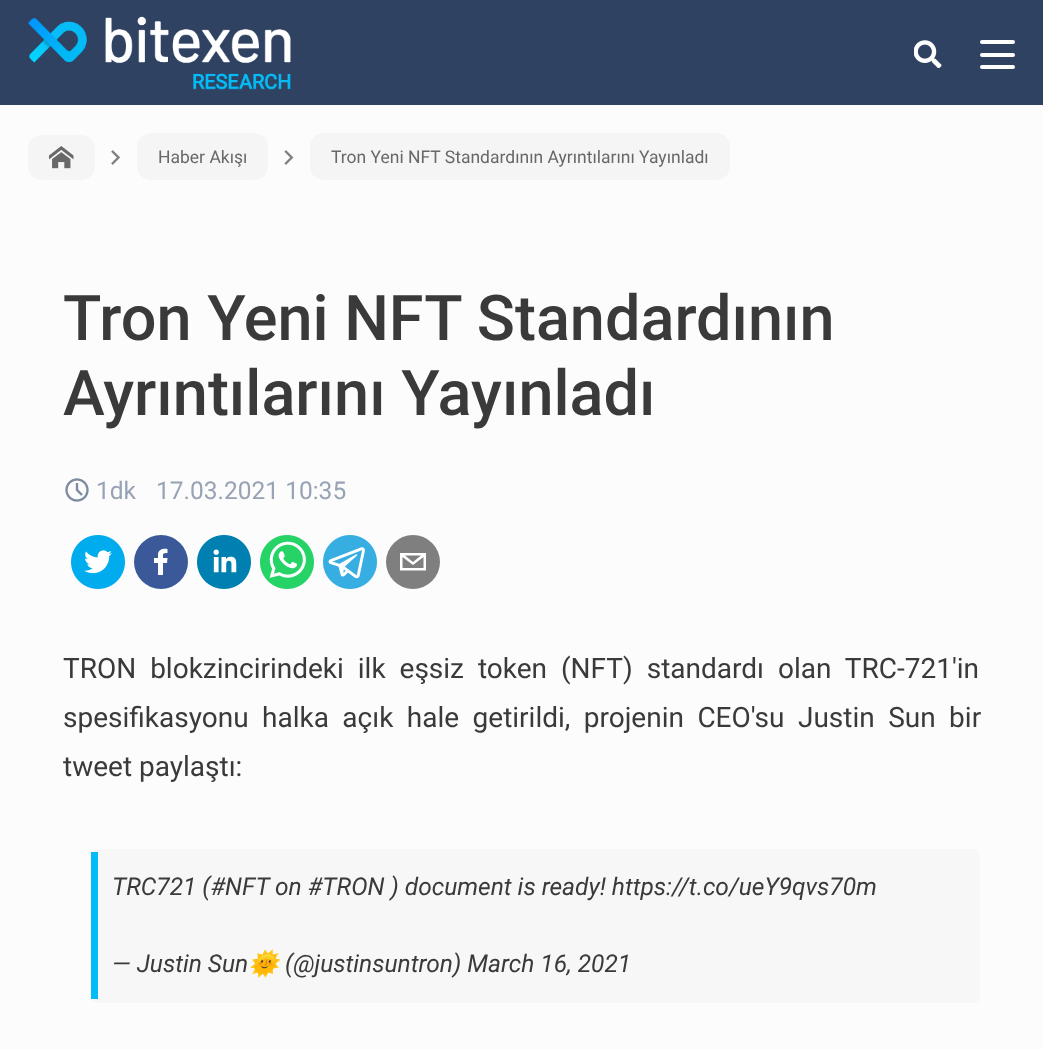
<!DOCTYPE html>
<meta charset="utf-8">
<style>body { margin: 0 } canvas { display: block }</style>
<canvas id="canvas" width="1043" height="1049"></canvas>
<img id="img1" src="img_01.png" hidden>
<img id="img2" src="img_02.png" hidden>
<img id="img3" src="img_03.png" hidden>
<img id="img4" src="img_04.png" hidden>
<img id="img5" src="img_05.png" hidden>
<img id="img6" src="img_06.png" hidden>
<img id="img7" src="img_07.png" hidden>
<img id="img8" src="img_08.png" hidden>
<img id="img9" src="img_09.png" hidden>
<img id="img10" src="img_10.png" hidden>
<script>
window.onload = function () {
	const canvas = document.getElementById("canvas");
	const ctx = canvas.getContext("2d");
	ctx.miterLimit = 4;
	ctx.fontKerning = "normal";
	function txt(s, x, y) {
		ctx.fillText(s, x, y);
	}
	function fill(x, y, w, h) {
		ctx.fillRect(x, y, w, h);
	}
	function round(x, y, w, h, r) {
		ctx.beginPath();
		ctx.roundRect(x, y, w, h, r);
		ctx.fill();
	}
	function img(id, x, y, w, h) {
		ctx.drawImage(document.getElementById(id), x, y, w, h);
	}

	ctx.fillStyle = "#FCFCFC";
	fill(0, 0, 1043, 1049);
	ctx.fillStyle = "#304262";
	fill(0, 0, 1043, 105);
	img("img1", 28, 16, 263, 74);
	img("img2", 914, 40, 28, 28);
	ctx.fillStyle = "#FFFFFF";
	round(980, 40, 35, 4, 2);
	round(980, 53, 35, 4, 2);
	round(980, 65, 35, 4, 2);
	ctx.fillStyle = "#F5F5F5";
	round(28, 135, 67, 45, 14);
	img("img3", 49, 146, 25, 23);
	img("img4", 111, 150, 9, 15);
	round(137, 133, 131, 47, 14);
	img("img5", 284, 150, 10, 15);
	round(310, 133, 420, 47, 14);
	img("img6", 65, 478, 24, 24);
	img("img7", 71, 535, 54, 54);
	ctx.fillStyle = "#3B5998";
	ctx.beginPath();
	ctx.arc(161, 562, 27, 0, Math.PI * 2);
	ctx.fill();
	ctx.fillStyle = "#FFFFFF";
	ctx.beginPath();
	ctx.moveTo(163, 575);
	ctx.lineTo(163, 563);
	ctx.lineTo(167, 563);
	ctx.lineTo(167.5, 558);
	ctx.lineTo(163, 558);
	ctx.bezierCurveTo(163, 553.5, 162.5, 553, 167.5, 553);
	ctx.lineTo(167.5, 549);
	ctx.bezierCurveTo(163.5, 548, 159, 549, 158, 553.5);
	ctx.lineTo(158, 558);
	ctx.lineTo(154, 558);
	ctx.lineTo(154, 563);
	ctx.lineTo(158, 563);
	ctx.lineTo(158, 575);
	ctx.closePath();
	ctx.fill();
	img("img8", 197, 535, 54, 54);
	img("img9", 260, 535, 54, 54);
	img("img10", 323, 535, 54, 54);
	ctx.fillStyle = "#7F7F7F";
	ctx.beginPath();
	ctx.arc(413, 562, 27, 0, Math.PI * 2);
	ctx.fill();
	ctx.fillStyle = "#FFFFFF";
	ctx.beginPath();
	ctx.moveTo(400, 553);
	ctx.lineTo(400, 570.5);
	ctx.lineTo(426, 570.5);
	ctx.lineTo(426, 553);
	ctx.closePath();
	ctx.moveTo(421, 555.5);
	ctx.lineTo(413, 562);
	ctx.lineTo(405, 555.5);
	ctx.closePath();
	ctx.moveTo(402.5, 568);
	ctx.lineTo(402.5, 557);
	ctx.lineTo(413, 565);
	ctx.lineTo(423.5, 557);
	ctx.lineTo(423.5, 568);
	ctx.closePath();
	ctx.fill();
	ctx.fillStyle = "#F7F7F7";
	round(91, 849, 889, 154, 7);
	ctx.fillStyle = "#03BBF5";
	fill(91, 852, 7, 147);
	ctx.font = "17.5px Roboto";
	ctx.fillStyle = "#686868";
	txt("Haber Akışı", 158, 163);
	txt("Tron Yeni NFT Standardının Ayrıntılarını Yayınladı", 331, 163);
	ctx.font = "500 63px Roboto";
	ctx.fillStyle = "#3A3A3A";
	txt("Tron Yeni NFT Standardının", 63, 340);
	txt("Ayrıntılarını Yayınladı", 63, 415);
	ctx.font = "24.5px Roboto";
	ctx.fillStyle = "#97A2B5";
	txt("1dk", 96, 499);
	txt("17.03.2021 10:35", 156, 499);
	ctx.wordSpacing = "7px";
	ctx.font = "28px Roboto";
	ctx.fillStyle = "#3A3A3A";
	txt("TRON blokzincirindeki ilk eşsiz token (NFT) standardı olan TRC-721'in", 63, 678);
	ctx.wordSpacing = "6.5px";
	txt("spesifikasyonu halka açık hale getirildi, projenin CEO'su Justin Sun bir", 63, 727);
	ctx.wordSpacing = "0px";
	txt("tweet paylaştı:", 63, 776);
	ctx.font = "italic 24.5px Roboto";
	txt("TRC721 (#NFT", 112, 895);
	txt("on #TRON ) document is ready! https://t.co/ueY9qvs70m", 275, 895);
	txt("— Justin Sun", 112, 972);
	ctx.font = "italic 24.5px Noto Color Emoji";
	txt("🌞", 248, 972);
	ctx.font = "italic 24.5px Roboto";
	txt("(@justinsuntron) March 16, 2021", 285, 972);
};
</script>
